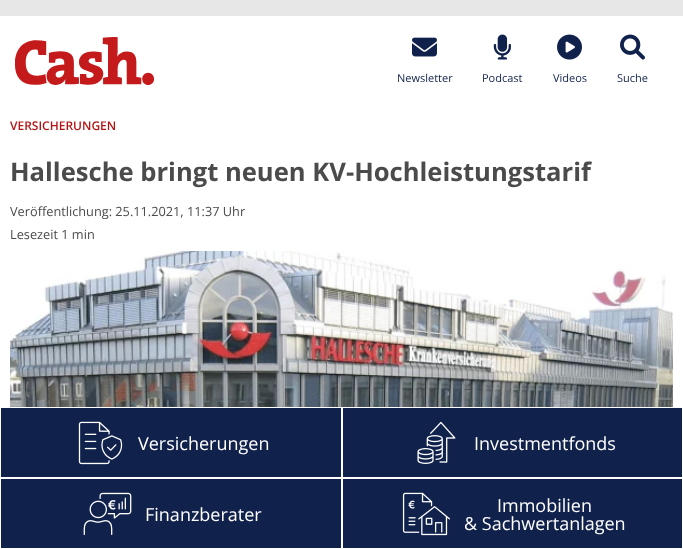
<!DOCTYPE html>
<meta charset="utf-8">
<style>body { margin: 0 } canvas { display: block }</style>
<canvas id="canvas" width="683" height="549"></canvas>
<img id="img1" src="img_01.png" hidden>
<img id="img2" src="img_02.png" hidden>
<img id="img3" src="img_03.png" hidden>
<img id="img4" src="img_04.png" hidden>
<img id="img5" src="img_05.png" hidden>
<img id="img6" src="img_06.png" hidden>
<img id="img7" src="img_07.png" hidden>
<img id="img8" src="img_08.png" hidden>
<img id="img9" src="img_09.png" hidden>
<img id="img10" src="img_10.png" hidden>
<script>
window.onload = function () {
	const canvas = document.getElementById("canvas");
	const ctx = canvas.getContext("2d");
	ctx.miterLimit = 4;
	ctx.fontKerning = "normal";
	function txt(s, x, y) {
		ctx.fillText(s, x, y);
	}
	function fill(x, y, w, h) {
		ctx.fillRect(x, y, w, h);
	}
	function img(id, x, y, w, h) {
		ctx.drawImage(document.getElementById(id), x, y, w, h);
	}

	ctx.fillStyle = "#E7E7E7";
	fill(0, 0, 683, 549);
	ctx.fillStyle = "#FFFFFF";
	fill(0, 16, 683, 391);
	img("img1", 15, 37, 140, 48);
	img("img2", 412, 37, 25, 20);
	img("img3", 493, 34, 18, 26);
	img("img4", 557, 34, 25, 26);
	img("img5", 620, 34, 25, 26);
	img("img6", 10, 251, 663, 156);
	ctx.fillStyle = "#10214C";
	fill(1, 408, 681, 140);
	ctx.strokeStyle = "#FFFFFF";
	ctx.strokeRect(0.5, 407.5, 341, 70);
	img("img7", 78, 421, 45, 44);
	ctx.strokeRect(342.5, 407.5, 340, 70);
	img("img8", 417, 421, 39, 43);
	ctx.strokeRect(0.5, 478.5, 341, 70);
	img("img9", 83, 492, 49, 43);
	ctx.strokeRect(342.5, 478.5, 340, 70);
	img("img10", 402, 492, 49, 44);
	ctx.font = "11px Open Sans";
	txt("Newsletter", 397, 82);
	txt("Podcast", 482, 82);
	txt("Videos", 553, 82);
	txt("Suche", 617, 82);
	ctx.font = "600 12px Open Sans";
	ctx.fillStyle = "#B41616";
	txt("VERSICHERUNGEN", 10, 130);
	ctx.font = "bold 25.6px Open Sans";
	ctx.fillStyle = "#4B4B4B";
	txt("Hallesche bringt neuen KV-Hochleistungstarif", 10, 181);
	ctx.font = "12.75px Open Sans";
	txt("Veröffentlichung: 25.11.2021, 11:37 Uhr", 10, 216);
	txt("Lesezeit 1 min", 10, 239);
	ctx.font = "18px Open Sans";
	ctx.fillStyle = "#FFFFFF";
	txt("Versicherungen", 138, 450);
	txt("Investmentfonds", 474, 450);
	txt("Finanzberater", 145, 521);
	txt("Immobilien", 497, 512);
	txt("& Sachwertanlagen", 464, 530);
};
</script>
